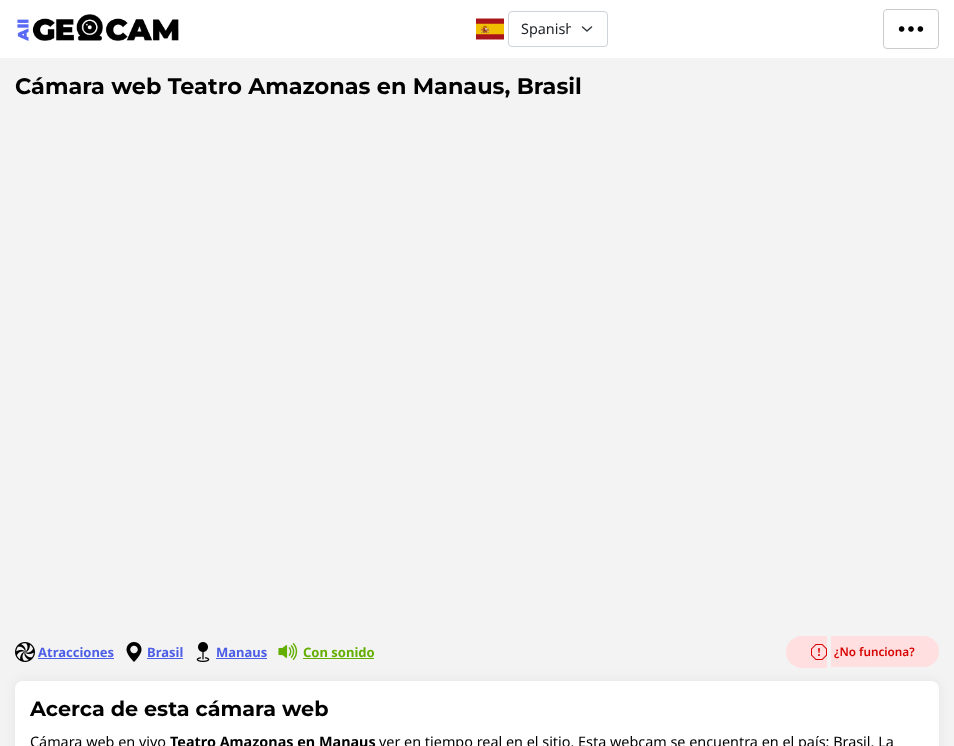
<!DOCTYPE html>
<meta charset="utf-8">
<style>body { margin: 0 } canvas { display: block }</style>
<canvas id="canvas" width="954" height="746"></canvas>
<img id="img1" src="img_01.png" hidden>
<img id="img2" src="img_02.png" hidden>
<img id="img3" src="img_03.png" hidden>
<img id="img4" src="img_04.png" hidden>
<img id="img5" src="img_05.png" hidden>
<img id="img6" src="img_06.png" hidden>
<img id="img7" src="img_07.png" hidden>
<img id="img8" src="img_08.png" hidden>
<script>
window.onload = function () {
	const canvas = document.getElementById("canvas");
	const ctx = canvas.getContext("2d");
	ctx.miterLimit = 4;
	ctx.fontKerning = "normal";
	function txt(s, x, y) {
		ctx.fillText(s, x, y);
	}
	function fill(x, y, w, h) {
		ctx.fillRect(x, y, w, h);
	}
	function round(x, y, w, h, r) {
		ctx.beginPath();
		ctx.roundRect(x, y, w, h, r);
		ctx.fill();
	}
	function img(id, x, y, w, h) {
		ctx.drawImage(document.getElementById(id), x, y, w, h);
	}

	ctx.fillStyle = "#F3F3F3";
	fill(0, 0, 954, 746);
	ctx.fillStyle = "#FFFFFF";
	fill(0, 0, 954, 58);
	img("img1", 17, 14, 162, 27);
	img("img2", 476, 18, 28, 22);
	ctx.beginPath();
	ctx.moveTo(582.5, 27);
	ctx.lineTo(587, 31);
	ctx.lineTo(591.5, 27);
	ctx.strokeStyle = "#343A40";
	ctx.lineWidth = 1.5;
	ctx.lineCap = "round";
	ctx.lineJoin = "round";
	ctx.stroke();
	ctx.beginPath();
	ctx.roundRect(508.5, 11.5, 99, 35, 3.5);
	ctx.strokeStyle = "#CED4DA";
	ctx.lineWidth = 1;
	ctx.lineJoin = "miter";
	ctx.stroke();
	ctx.beginPath();
	ctx.roundRect(883.5, 9.5, 55, 39, 3.5);
	ctx.strokeStyle = "#CCCCCC";
	ctx.stroke();
	img("img3", 898, 26, 26, 6);
	ctx.fillStyle = "rgba(0, 0, 0, 0.05)";
	ctx.filter = "blur(6px)";
	ctx.beginPath();
	ctx.roundRect(14, 680, 926, 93, 9);
	ctx.fill();
	ctx.filter = "none";
	img("img4", 15, 642, 20, 20);
	ctx.fillStyle = "#4C5DE6";
	fill(38, 658, 76, 1);
	img("img5", 126, 642, 16, 20);
	fill(147, 658, 36, 1);
	img("img6", 196, 642, 14, 20);
	fill(216, 658, 51, 1);
	img("img7", 278, 643, 20, 17);
	ctx.fillStyle = "#63AE00";
	fill(303, 658, 71, 1);
	ctx.fillStyle = "#FFDFDF";
	ctx.beginPath();
	ctx.roundRect(786, 636, 41, 32, [16, 0, 0, 16]);
	ctx.fill();
	img("img8", 811, 644, 16, 16);
	ctx.beginPath();
	ctx.roundRect(831, 636, 108, 31, [0, 15.5, 15.5, 0]);
	ctx.fill();
	ctx.fillStyle = "#FFFFFF";
	round(15, 681, 924, 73, 8);
	ctx.save();
	ctx.beginPath();
	ctx.rect(521, 18, 50, 22);
	ctx.clip();
	ctx.font = "14.4px Noto Sans";
	ctx.fillStyle = "#212529";
	txt("Spanish", 521, 34);
	ctx.restore();
	ctx.font = "bold 22.4px Montserrat";
	ctx.fillStyle = "#000000";
	txt("Cámara web Teatro Amazonas en Manaus, Brasil", 15, 94);
	ctx.font = "bold 13px Noto Sans";
	ctx.fillStyle = "#4C5DE6";
	txt("Atracciones", 38, 657);
	txt("Brasil", 147, 657);
	txt("Manaus", 216, 657);
	ctx.fillStyle = "#63AE00";
	txt("Con sonido", 303, 657);
	ctx.font = "600 11.75px Noto Sans";
	ctx.fillStyle = "#D80000";
	txt("¿No funciona?", 834, 656);
	ctx.font = "bold 20.75px Montserrat";
	ctx.fillStyle = "#000000";
	txt("Acerca de esta cámara web", 30, 716);
	ctx.font = "14.4px Noto Sans";
	txt("Cámara web en vivo", 30, 747);
	ctx.font = "bold 14.4px Noto Sans";
	txt("Teatro Amazonas en Manaus", 170, 747);
	ctx.font = "14.4px Noto Sans";
	txt("ver en tiempo real en el sitio. Esta webcam se encuentra en el país: Brasil. La", 379, 747);
};
</script>
